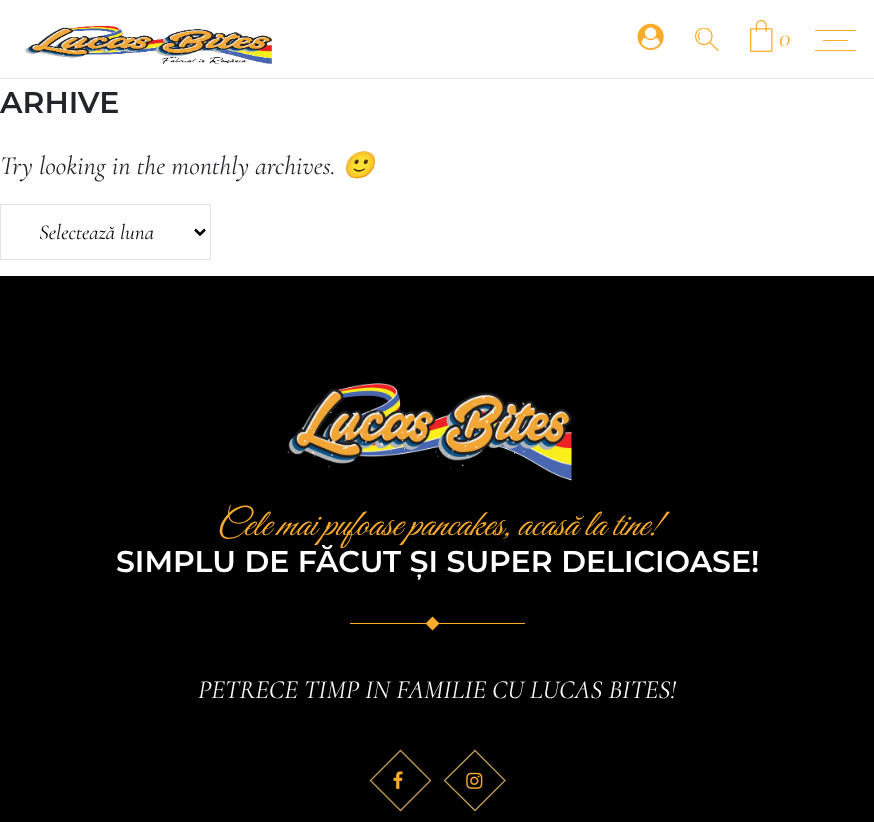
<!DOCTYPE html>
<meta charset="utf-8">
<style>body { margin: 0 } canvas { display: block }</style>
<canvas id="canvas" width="874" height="822"></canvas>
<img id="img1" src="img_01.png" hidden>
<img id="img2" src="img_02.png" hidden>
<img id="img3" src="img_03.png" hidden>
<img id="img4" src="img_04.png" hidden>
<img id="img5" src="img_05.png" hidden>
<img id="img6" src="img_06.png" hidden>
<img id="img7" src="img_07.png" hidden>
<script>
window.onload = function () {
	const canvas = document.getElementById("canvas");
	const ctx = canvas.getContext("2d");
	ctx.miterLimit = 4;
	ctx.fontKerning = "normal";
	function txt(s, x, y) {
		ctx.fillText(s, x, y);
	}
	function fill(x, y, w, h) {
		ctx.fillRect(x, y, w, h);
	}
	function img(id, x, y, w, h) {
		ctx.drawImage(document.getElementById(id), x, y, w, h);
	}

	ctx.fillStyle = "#FFFFFF";
	fill(0, 0, 874, 822);
	ctx.fillStyle = "#E3E3E3";
	fill(0, 78, 874, 1);
	img("img1", 25, 25, 247, 40);
	img("img2", 637, 23, 27, 27);
	img("img3", 695, 28, 24, 23);
	img("img4", 750, 20, 23, 32);
	ctx.fillStyle = "#FAAB2C";
	fill(815, 30, 41, 1);
	fill(823, 40, 25, 1);
	fill(815, 50, 41, 1);
	ctx.strokeStyle = "#E3E3E3";
	ctx.strokeRect(0.5, 204.5, 210, 55);
	ctx.beginPath();
	ctx.moveTo(195, 229.5);
	ctx.lineTo(200, 234.5);
	ctx.lineTo(205, 229.5);
	ctx.strokeStyle = "#000000";
	ctx.lineWidth = 2.5;
	ctx.stroke();
	ctx.fillStyle = "#000000";
	fill(0, 276, 874, 546);
	img("img5", 287, 383, 285, 98);
	ctx.fillStyle = "#FAAB2C";
	fill(350, 623, 175, 1);
	ctx.beginPath();
	ctx.moveTo(432.5, 616.5);
	ctx.lineTo(439.5, 623.5);
	ctx.lineTo(432.5, 630.5);
	ctx.lineTo(425.5, 623.5);
	ctx.closePath();
	ctx.fill();
	ctx.beginPath();
	ctx.moveTo(400.5, 750.5);
	ctx.lineTo(430.5, 780.5);
	ctx.lineTo(400.5, 810.5);
	ctx.lineTo(370.5, 780.5);
	ctx.closePath();
	ctx.strokeStyle = "#C19D56";
	ctx.lineWidth = 1.3;
	ctx.stroke();
	img("img6", 393, 771, 10, 18);
	ctx.beginPath();
	ctx.moveTo(475, 750.5);
	ctx.lineTo(505, 780.5);
	ctx.lineTo(475, 810.5);
	ctx.lineTo(444.5, 780.5);
	ctx.closePath();
	ctx.stroke();
	img("img7", 466, 772, 17, 17);
	ctx.font = "italic 26.25px Cormorant";
	txt("0", 779, 46);
	ctx.font = "600 30px Montserrat";
	ctx.fillStyle = "#212529";
	txt("ARHIVE", 0, 113);
	ctx.font = "italic 26.25px Cormorant";
	txt("Try looking in the monthly archives.", 0, 174);
	ctx.font = "italic 26.25px Noto Color Emoji";
	txt("🙂", 342, 174);
	ctx.font = "italic 21.25px Cormorant";
	ctx.fillStyle = "#000000";
	txt("Selectează luna", 39, 239);
	ctx.font = "italic 37.5px Great Vibes";
	ctx.fillStyle = "#FAAB2C";
	txt("Cele mai pufoase pancakes, acasă la tine!", 216, 535);
	ctx.wordSpacing = "0.25px";
	ctx.font = "600 30px Montserrat";
	ctx.fillStyle = "#FFFFFF";
	txt("SIMPLU DE FĂCUT ȘI SUPER DELICIOASE!", 116, 572);
	ctx.wordSpacing = "0px";
	ctx.font = "italic 26.25px Cormorant";
	txt("PETRECE TIMP IN FAMILIE CU LUCAS BITES!", 198, 698);
};
</script>
